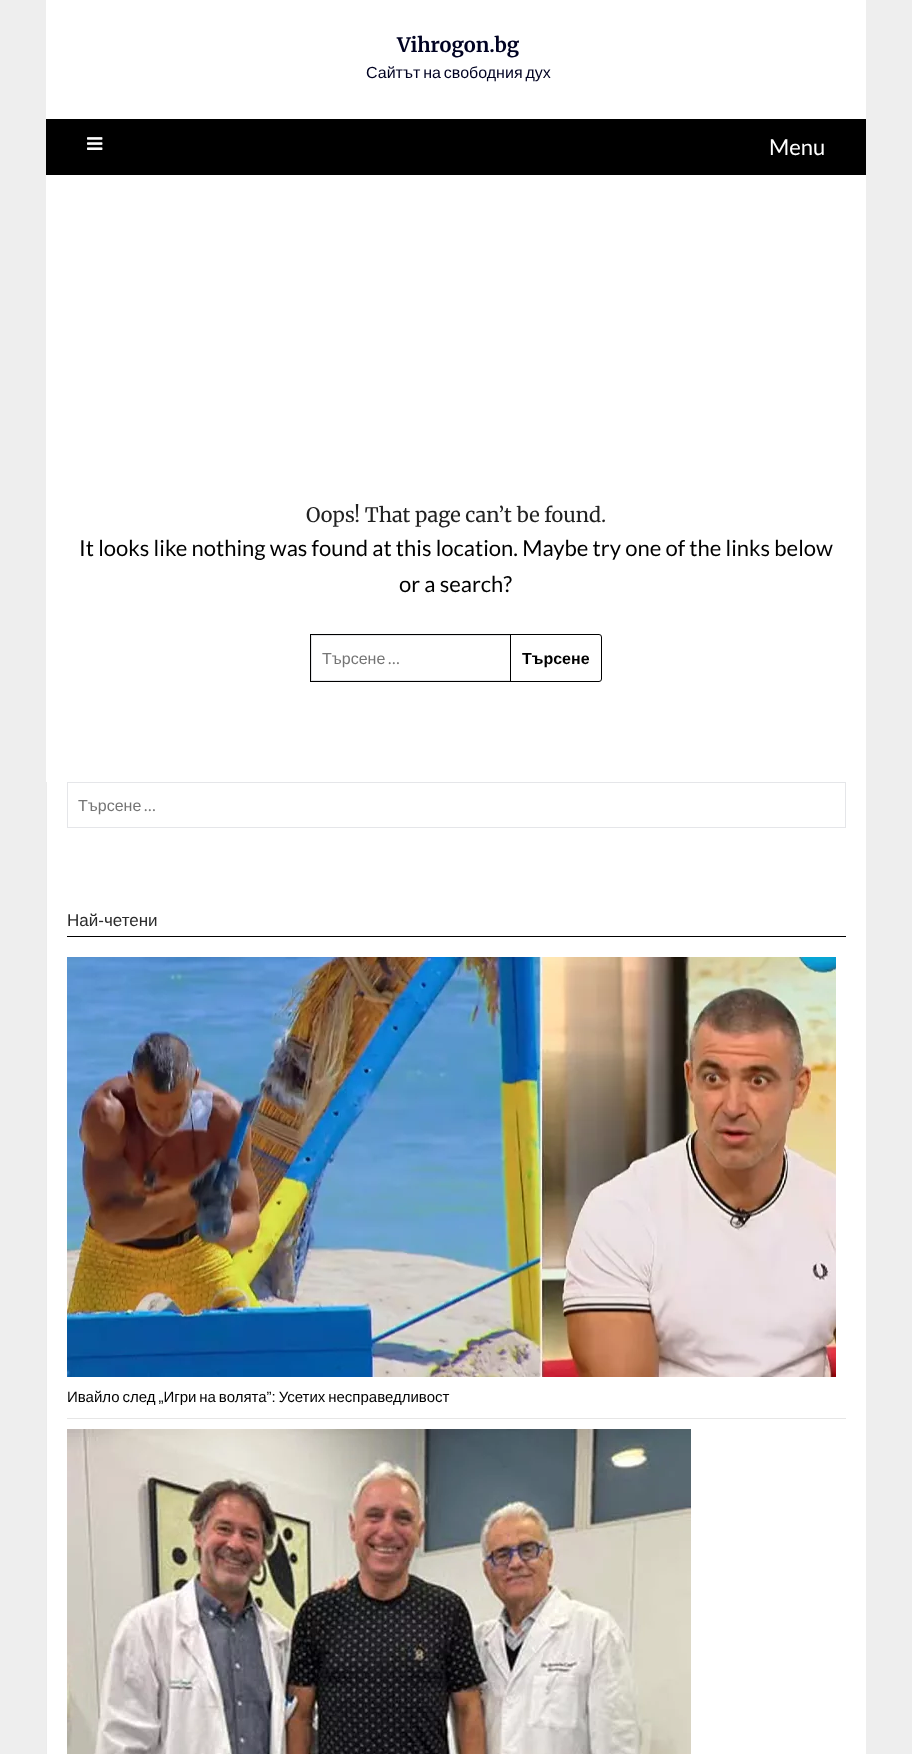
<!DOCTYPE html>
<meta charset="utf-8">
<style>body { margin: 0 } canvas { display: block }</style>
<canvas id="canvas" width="912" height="1754"></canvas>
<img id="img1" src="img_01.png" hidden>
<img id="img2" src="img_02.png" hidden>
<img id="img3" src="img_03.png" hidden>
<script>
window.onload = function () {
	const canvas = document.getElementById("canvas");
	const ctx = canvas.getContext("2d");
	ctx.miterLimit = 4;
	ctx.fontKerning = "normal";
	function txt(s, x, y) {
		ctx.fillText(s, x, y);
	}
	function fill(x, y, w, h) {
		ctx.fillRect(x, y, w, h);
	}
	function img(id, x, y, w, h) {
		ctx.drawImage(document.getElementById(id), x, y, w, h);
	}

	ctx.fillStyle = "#EEEEEE";
	fill(0, 0, 912, 1754);
	ctx.fillStyle = "#FFFFFF";
	fill(46, 0, 820, 119);
	ctx.fillStyle = "#000000";
	fill(46, 119, 820, 56);
	img("img1", 87, 137, 16, 13);
	ctx.fillStyle = "#FFFFFF";
	fill(46, 175, 820, 1579);
	ctx.fillStyle = "#000000";
	fill(310, 634, 201, 1);
	fill(310, 681, 201, 1);
	fill(310, 634, 1, 48);
	ctx.strokeStyle = "#E5E6E9";
	ctx.strokeRect(311.5, 635.5, 199, 45);
	ctx.beginPath();
	ctx.roundRect(510.5, 634.5, 91, 47, [0, 2.5, 2.5, 0]);
	ctx.strokeStyle = "#000000";
	ctx.stroke();
	ctx.fillStyle = "#ECECEC";
	fill(46, 782, 1, 972);
	ctx.strokeStyle = "#E5E6E9";
	ctx.strokeRect(67.5, 782.5, 778, 45);
	ctx.fillStyle = "#000000";
	fill(67, 936, 779, 1);
	ctx.fillStyle = "#E6E6E6";
	fill(67, 1418, 779, 1);
	img("img2", 67, 957, 769, 420);
	img("img3", 67, 1429, 624, 325);
	ctx.font = "bold 20px Merriweather";
	ctx.fillStyle = "#000222";
	txt("Vihrogon.bg", 397, 52);
	ctx.wordSpacing = "-1.5px";
	ctx.font = "16px Liberation Sans";
	txt("Сайтът на свободния дух", 366, 78);
	ctx.wordSpacing = "0px";
	ctx.font = "22px Lato";
	ctx.fillStyle = "#FFFFFF";
	txt("Menu", 769, 155);
	ctx.font = "20px Merriweather";
	ctx.fillStyle = "#222222";
	txt("Oops! That page can’t be found.", 306, 522);
	ctx.font = "22px Lato";
	ctx.fillStyle = "#000000";
	txt("It looks like nothing was found at this location. Maybe try one of the links below", 79, 556);
	txt("or a search?", 399, 592);
	ctx.font = "16px Liberation Sans";
	ctx.fillStyle = "#757575";
	txt("Търсене", 322, 664);
	ctx.font = "16px Lato";
	txt("…", 388, 664);
	ctx.font = "bold 16px Liberation Sans";
	ctx.fillStyle = "#000000";
	txt("Търсене", 522, 664);
	ctx.font = "16px Liberation Sans";
	ctx.fillStyle = "#757575";
	txt("Търсене", 78, 811);
	ctx.font = "16px Lato";
	txt("…", 144, 811);
	ctx.font = "17px Liberation Sans";
	ctx.fillStyle = "#2B2B2B";
	txt("Най-четени", 67, 926);
	ctx.wordSpacing = "-1.25px";
	ctx.font = "15px Liberation Sans";
	ctx.fillStyle = "#000000";
	txt("Ивайло след „Игри на волята”: Усетих несправедливост", 67, 1402);
};
</script>
